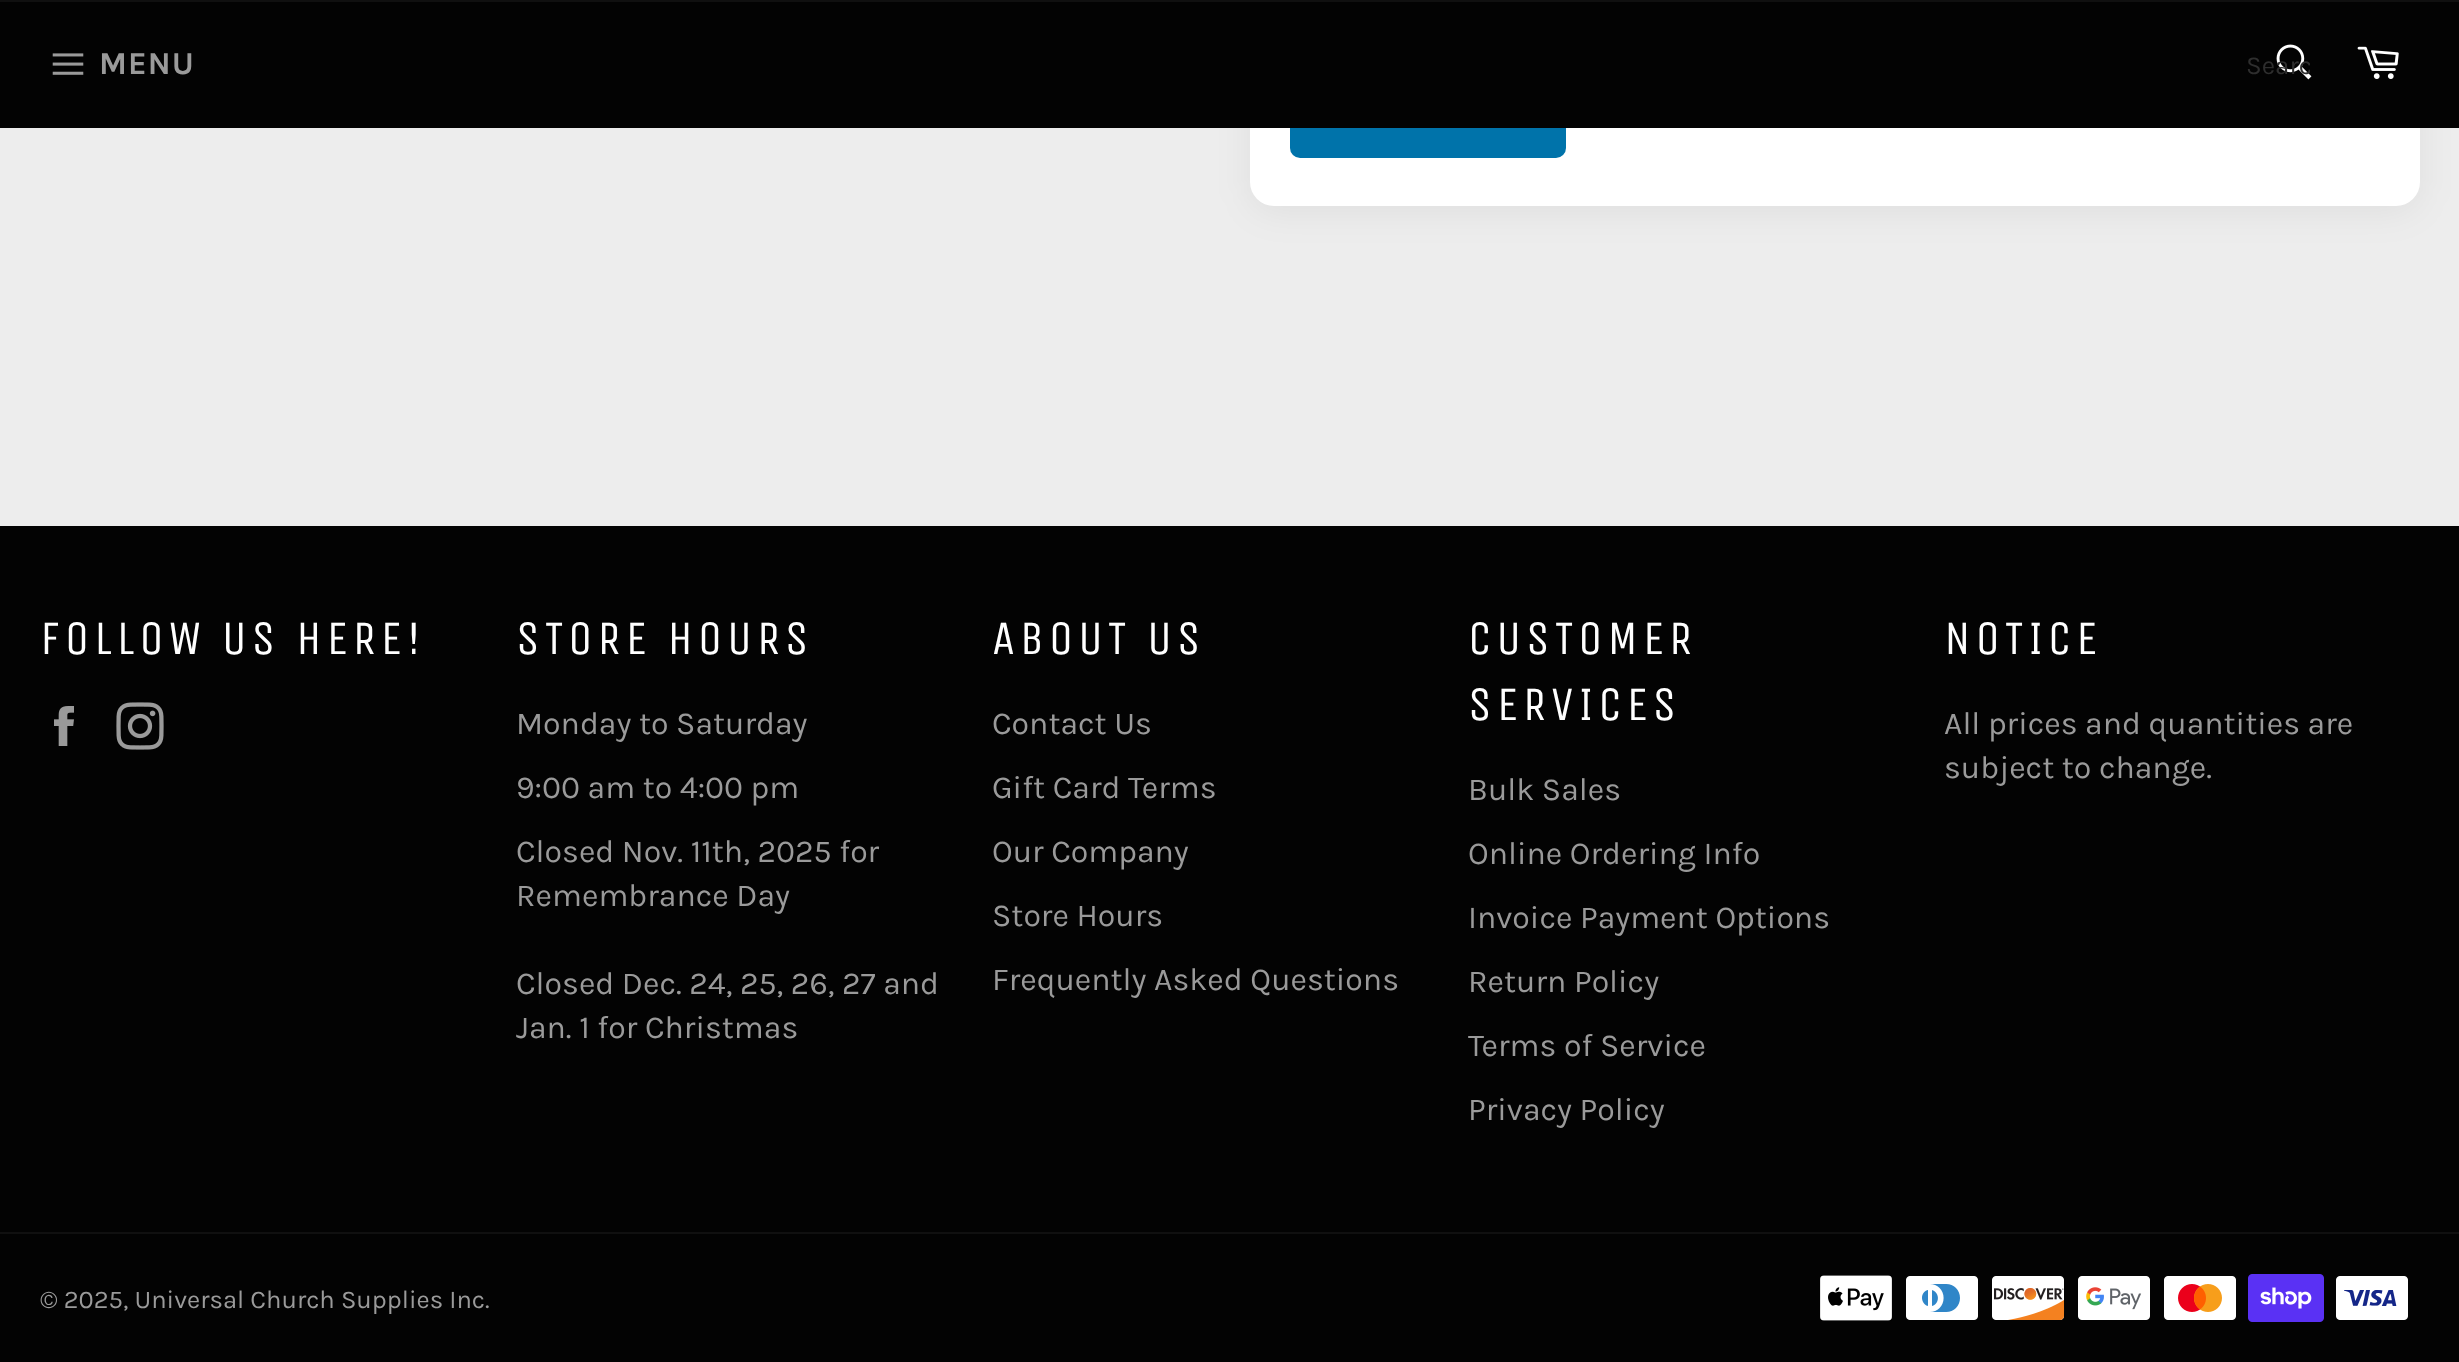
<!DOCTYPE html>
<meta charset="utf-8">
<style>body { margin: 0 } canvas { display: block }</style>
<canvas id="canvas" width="2459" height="1362"></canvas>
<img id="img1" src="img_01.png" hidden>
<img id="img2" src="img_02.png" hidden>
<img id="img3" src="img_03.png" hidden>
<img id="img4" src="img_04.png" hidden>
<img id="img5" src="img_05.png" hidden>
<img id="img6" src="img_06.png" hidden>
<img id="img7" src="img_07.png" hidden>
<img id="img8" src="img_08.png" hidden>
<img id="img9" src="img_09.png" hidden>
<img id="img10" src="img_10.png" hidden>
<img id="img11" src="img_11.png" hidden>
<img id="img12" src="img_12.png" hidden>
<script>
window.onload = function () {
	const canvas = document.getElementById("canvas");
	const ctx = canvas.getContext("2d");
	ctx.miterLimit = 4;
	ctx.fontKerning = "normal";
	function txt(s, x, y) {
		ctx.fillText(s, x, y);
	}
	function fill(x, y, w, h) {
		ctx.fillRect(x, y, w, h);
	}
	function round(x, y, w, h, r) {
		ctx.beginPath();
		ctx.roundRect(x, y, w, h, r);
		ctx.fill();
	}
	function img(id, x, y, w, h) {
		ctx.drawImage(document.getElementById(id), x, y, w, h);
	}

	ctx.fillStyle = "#EDEDED";
	fill(0, 0, 2459, 1362);
	ctx.fillStyle = "rgba(0, 0, 0, 0.06)";
	ctx.filter = "blur(18px)";
	ctx.beginPath();
	ctx.roundRect(1250, -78, 1170, 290, 24);
	ctx.fill();
	ctx.filter = "none";
	ctx.fillStyle = "#FFFFFF";
	round(1250, -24, 1170, 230, 24);
	ctx.fillStyle = "#0073AA";
	round(1290, 74, 276, 84, 10);
	ctx.fillStyle = "#030303";
	fill(0, 2, 2459, 126);
	ctx.fillStyle = "#101010";
	fill(0, 0, 2459, 2);
	img("img1", 52, 53, 32, 22);
	img("img2", 2276, 44, 36, 36);
	img("img3", 2357, 46, 42, 33);
	ctx.fillStyle = "#030303";
	fill(0, 526, 2459, 836);
	img("img4", 54, 706, 20, 40);
	img("img5", 116, 702, 48, 48);
	ctx.fillStyle = "#101010";
	fill(0, 1232, 2459, 2);
	img("img6", 1820, 1275, 72, 46);
	img("img7", 1906, 1276, 72, 44);
	img("img8", 1992, 1276, 73, 44);
	img("img9", 2078, 1276, 72, 44);
	img("img10", 2164, 1276, 72, 44);
	img("img11", 2248, 1274, 76, 48);
	img("img12", 2336, 1276, 72, 44);
	ctx.letterSpacing = "1px";
	ctx.font = "bold 32px Karla";
	ctx.fillStyle = "#9A9A9A";
	txt("MENU", 99, 74);
	ctx.save();
	ctx.beginPath();
	ctx.rect(2246, 50, 64, 30);
	ctx.clip();
	ctx.letterSpacing = "0px";
	ctx.font = "26px Karla";
	ctx.fillStyle = "#2E2E2E";
	txt("Searc", 2246, 74);
	ctx.restore();
	ctx.letterSpacing = "4.75px";
	ctx.font = "48px Unica One";
	ctx.fillStyle = "#FFFFFF";
	txt("FOLLOW US HERE!", 40, 654);
	txt("STORE HOURS", 516, 654);
	ctx.letterSpacing = "0px";
	ctx.font = "32px Karla";
	ctx.fillStyle = "#9A9A9A";
	txt("Monday to Saturday", 516, 734);
	txt("9:00 am to 4:00 pm", 516, 798);
	txt("Closed Nov. 11th, 2025 for", 516, 862);
	txt("Remembrance Day", 516, 906);
	txt("Closed Dec. 24, 25, 26, 27 and", 516, 994);
	txt("Jan. 1 for Christmas", 516, 1038);
	ctx.letterSpacing = "4.75px";
	ctx.font = "48px Unica One";
	ctx.fillStyle = "#FFFFFF";
	txt("ABOUT US", 992, 654);
	ctx.letterSpacing = "0px";
	ctx.font = "32px Karla";
	ctx.fillStyle = "#9A9A9A";
	txt("Contact Us", 992, 734);
	txt("Gift Card Terms", 992, 798);
	txt("Our Company", 992, 862);
	txt("Store Hours", 992, 926);
	txt("Frequently Asked Questions", 992, 990);
	ctx.letterSpacing = "4.75px";
	ctx.font = "48px Unica One";
	ctx.fillStyle = "#FFFFFF";
	txt("CUSTOMER", 1468, 654);
	txt("SERVICES", 1468, 720);
	ctx.letterSpacing = "0px";
	ctx.font = "32px Karla";
	ctx.fillStyle = "#9A9A9A";
	txt("Bulk Sales", 1468, 800);
	txt("Online Ordering Info", 1468, 864);
	txt("Invoice Payment Options", 1468, 928);
	txt("Return Policy", 1468, 992);
	txt("Terms of Service", 1468, 1056);
	txt("Privacy Policy", 1468, 1120);
	ctx.letterSpacing = "4.75px";
	ctx.font = "48px Unica One";
	ctx.fillStyle = "#FFFFFF";
	txt("NOTICE", 1944, 654);
	ctx.letterSpacing = "0px";
	ctx.font = "32px Karla";
	ctx.fillStyle = "#9A9A9A";
	txt("All prices and quantities are", 1944, 734);
	txt("subject to change.", 1944, 778);
	ctx.font = "25.6px Karla";
	txt("© 2025, Universal Church Supplies Inc.", 40, 1308);
};
</script>
